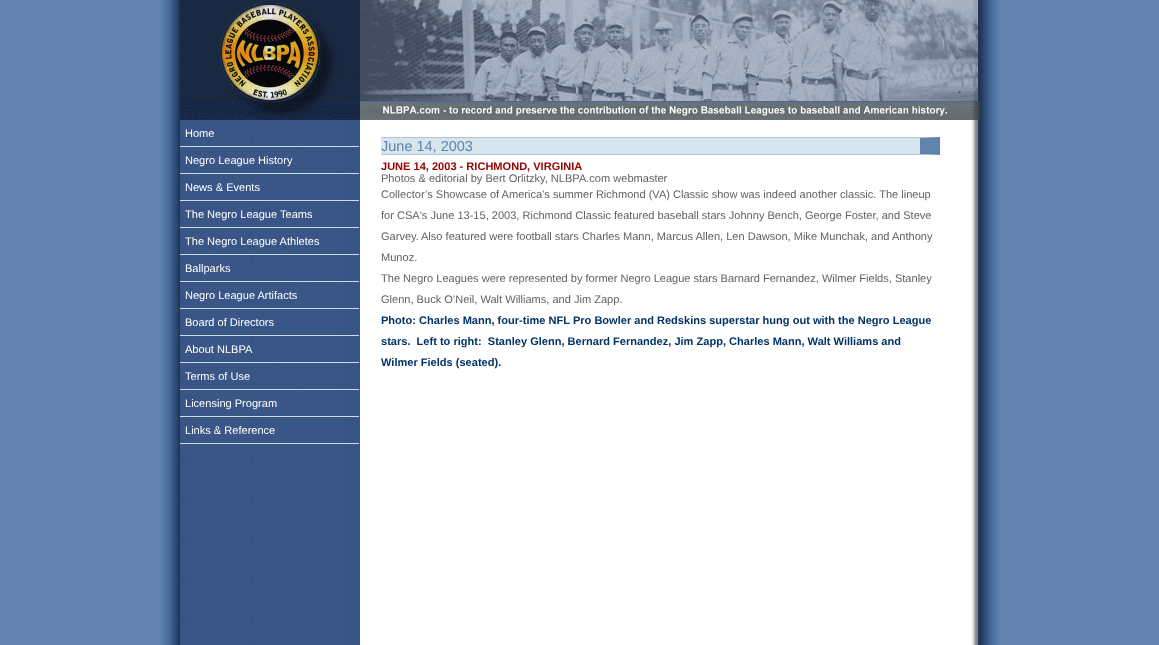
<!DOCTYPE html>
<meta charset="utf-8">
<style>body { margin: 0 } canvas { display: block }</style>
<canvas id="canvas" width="1159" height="645"></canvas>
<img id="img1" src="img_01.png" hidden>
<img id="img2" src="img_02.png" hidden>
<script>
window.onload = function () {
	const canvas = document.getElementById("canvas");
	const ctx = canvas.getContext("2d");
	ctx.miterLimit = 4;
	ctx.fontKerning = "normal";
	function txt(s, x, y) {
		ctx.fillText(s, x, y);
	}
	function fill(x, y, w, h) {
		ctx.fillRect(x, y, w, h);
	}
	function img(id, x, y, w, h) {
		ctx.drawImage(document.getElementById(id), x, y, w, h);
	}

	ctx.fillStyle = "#6183AD";
	fill(0, 0, 1159, 645);
	img("img1", 160, 0, 840, 645);
	img("img2", 180, 0, 800, 120);
	ctx.fillStyle = "#C9DCEA";
	fill(180, 146, 179, 1);
	fill(180, 173, 179, 1);
	fill(180, 200, 179, 1);
	fill(180, 227, 179, 1);
	fill(180, 254, 179, 1);
	fill(180, 281, 179, 1);
	fill(180, 308, 179, 1);
	fill(180, 335, 179, 1);
	fill(180, 362, 179, 1);
	fill(180, 389, 179, 1);
	fill(180, 416, 179, 1);
	fill(180, 443, 179, 1);
	ctx.fillStyle = "#D7E5EF";
	fill(381, 137, 559, 18);
	ctx.fillStyle = "#AEC4DE";
	ctx.beginPath();
	ctx.moveTo(381, 137);
	ctx.lineTo(940, 137);
	ctx.lineTo(920, 138);
	ctx.lineTo(381, 138);
	ctx.closePath();
	ctx.fill();
	ctx.fillStyle = "#6183AD";
	ctx.beginPath();
	ctx.moveTo(940, 137);
	ctx.lineTo(940, 155);
	ctx.lineTo(920, 154);
	ctx.lineTo(920, 138);
	ctx.closePath();
	ctx.fill();
	ctx.fillStyle = "#AEC4DE";
	ctx.beginPath();
	ctx.moveTo(940, 155);
	ctx.lineTo(381, 155);
	ctx.lineTo(381, 154);
	ctx.lineTo(920, 154);
	ctx.closePath();
	ctx.fill();
	ctx.font = "11.05px Liberation Sans";
	ctx.fillStyle = "#FFFFFF";
	txt("Home", 185, 137);
	txt("Negro League History", 185, 164);
	txt("News & Events", 185, 191);
	txt("The Negro League Teams", 185, 218);
	txt("The Negro League Athletes", 185, 245);
	txt("Ballparks", 185, 272);
	txt("Negro League Artifacts", 185, 299);
	txt("Board of Directors", 185, 326);
	txt("About NLBPA", 185, 353);
	txt("Terms of Use", 185, 380);
	txt("Licensing Program", 185, 407);
	txt("Links & Reference", 185, 434);
	ctx.font = "14.5px Liberation Sans";
	ctx.fillStyle = "#6183AD";
	txt("June 14, 2003", 381, 151);
	ctx.font = "bold 11.05px Liberation Sans";
	ctx.fillStyle = "#990000";
	txt("JUNE 14, 2003 - RICHMOND, VIRGINIA", 381, 170);
	ctx.font = "11.05px Liberation Sans";
	ctx.fillStyle = "#616161";
	txt("Photos & editorial by Bert Orlitzky, NLBPA.com webmaster", 381, 182);
	txt("Collector’s Showcase of America’s summer Richmond (VA) Classic show was indeed another classic. The lineup", 381, 198);
	txt("for CSA's June 13-15, 2003, Richmond Classic featured baseball stars Johnny Bench, George Foster, and Steve", 381, 219);
	txt("Garvey.", 381, 240);
	txt("Also featured were football stars Charles Mann, Marcus Allen, Len Dawson, Mike Munchak, and Anthony", 421, 240);
	txt("Munoz.", 381, 261);
	txt("The Negro Leagues were represented by former Negro League stars Barnard Fernandez, Wilmer Fields, Stanley", 381, 282);
	txt("Glenn, Buck O’Neil, Walt Williams, and Jim Zapp.", 381, 303);
	ctx.font = "bold 11.05px Liberation Sans";
	ctx.fillStyle = "#003366";
	txt("Photo: Charles Mann, four-time NFL Pro Bowler and Redskins superstar hung out with the Negro League", 381, 324);
	txt("stars.  Left to right:  Stanley Glenn, Bernard Fernandez, Jim Zapp, Charles Mann, Walt Williams and", 381, 345);
	txt("Wilmer Fields (seated).", 381, 366);
};
</script>
